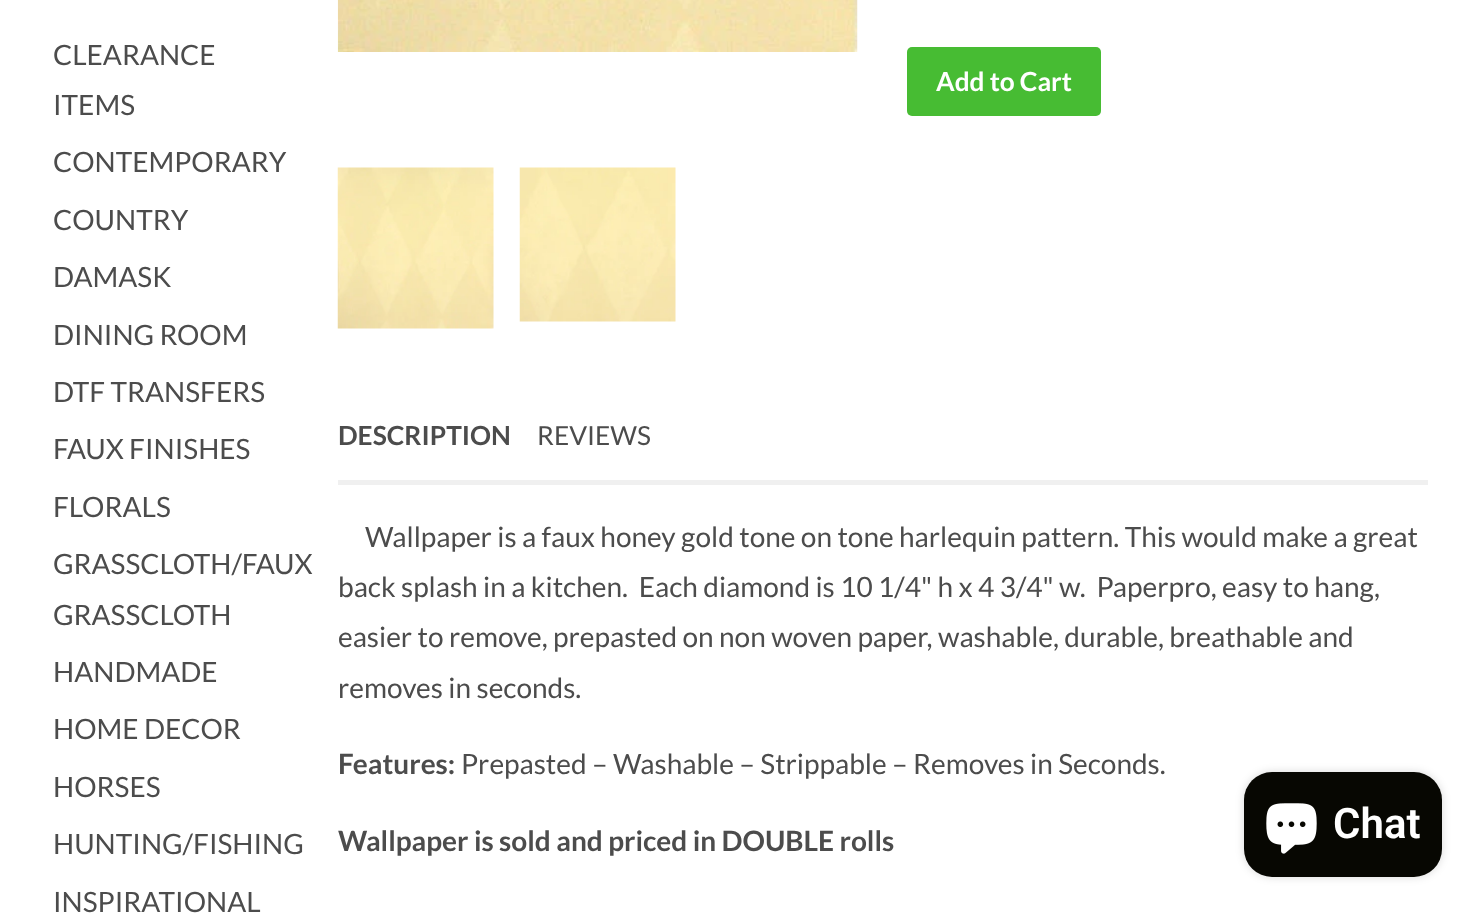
<!DOCTYPE html>
<meta charset="utf-8">
<style>body { margin: 0 } canvas { display: block }</style>
<canvas id="canvas" width="1480" height="913"></canvas>
<img id="img1" src="img_01.png" hidden>
<img id="img2" src="img_02.png" hidden>
<img id="img3" src="img_03.png" hidden>
<img id="img4" src="img_04.png" hidden>
<script>
window.onload = function () {
	const canvas = document.getElementById("canvas");
	const ctx = canvas.getContext("2d");
	ctx.miterLimit = 4;
	ctx.fontKerning = "normal";
	function txt(s, x, y) {
		ctx.fillText(s, x, y);
	}
	function fill(x, y, w, h) {
		ctx.fillRect(x, y, w, h);
	}
	function round(x, y, w, h, r) {
		ctx.beginPath();
		ctx.roundRect(x, y, w, h, r);
		ctx.fill();
	}
	function img(id, x, y, w, h) {
		ctx.drawImage(document.getElementById(id), x, y, w, h);
	}

	ctx.fillStyle = "#FFFFFF";
	fill(0, 0, 1480, 913);
	img("img1", 337, 0, 521, 52);
	ctx.fillStyle = "#47BC33";
	round(907, 47, 194, 69, 5);
	img("img2", 337, 167, 157, 162);
	img("img3", 519, 167, 157, 155);
	ctx.fillStyle = "#F0F0F0";
	fill(338, 480, 1090, 5);
	ctx.fillStyle = "rgba(0, 0, 0, 0.15)";
	ctx.filter = "blur(4.5px)";
	ctx.beginPath();
	ctx.roundRect(1244, 772, 198, 105, 28);
	ctx.fill();
	ctx.filter = "none";
	ctx.fillStyle = "#070702";
	round(1244, 772, 198, 105, 28);
	img("img4", 1266, 803, 51, 51);
	ctx.font = "28px Lato";
	ctx.fillStyle = "#4C4C4C";
	txt("CLEARANCE", 53, 65);
	txt("ITEMS", 53, 115);
	txt("CONTEMPORARY", 53, 172);
	txt("COUNTRY", 53, 230);
	txt("DAMASK", 53, 287);
	txt("DINING ROOM", 53, 345);
	txt("DTF TRANSFERS", 53, 402);
	txt("FAUX FINISHES", 53, 459);
	txt("FLORALS", 53, 517);
	txt("GRASSCLOTH/FAUX", 53, 574);
	txt("GRASSCLOTH", 53, 625);
	txt("HANDMADE", 53, 682);
	txt("HOME DECOR", 53, 739);
	txt("HORSES", 53, 797);
	txt("HUNTING/FISHING", 53, 854);
	txt("INSPIRATIONAL", 53, 912);
	ctx.font = "bold 26.25px Lato";
	ctx.fillStyle = "#FFFFFF";
	txt("Add to Cart", 936, 91);
	ctx.fillStyle = "#4C4C4C";
	txt("DESCRIPTION", 338, 445);
	ctx.font = "26.25px Lato";
	txt("REVIEWS", 537, 445);
	ctx.font = "28px Lato";
	txt("Wallpaper is a faux honey gold tone on tone harlequin pattern. This would make a great", 365, 547);
	txt("back splash in a kitchen.  Each diamond is 10 1/4\" h x 4 3/4\" w.  Paperpro, easy to hang,", 338, 597);
	txt("easier to remove, prepasted on non woven paper, washable, durable, breathable and", 338, 647);
	txt("removes in seconds.", 338, 698);
	ctx.font = "bold 28px Lato";
	txt("Features:", 338, 774);
	ctx.font = "28px Lato";
	txt("Prepasted – Washable – Strippable – Removes in Seconds.", 461, 774);
	ctx.font = "bold 28px Lato";
	txt("Wallpaper is sold and priced in DOUBLE rolls", 338, 851);
	ctx.font = "600 42px Roboto";
	ctx.fillStyle = "#FFFFFF";
	txt("Chat", 1333, 838);
};
</script>
